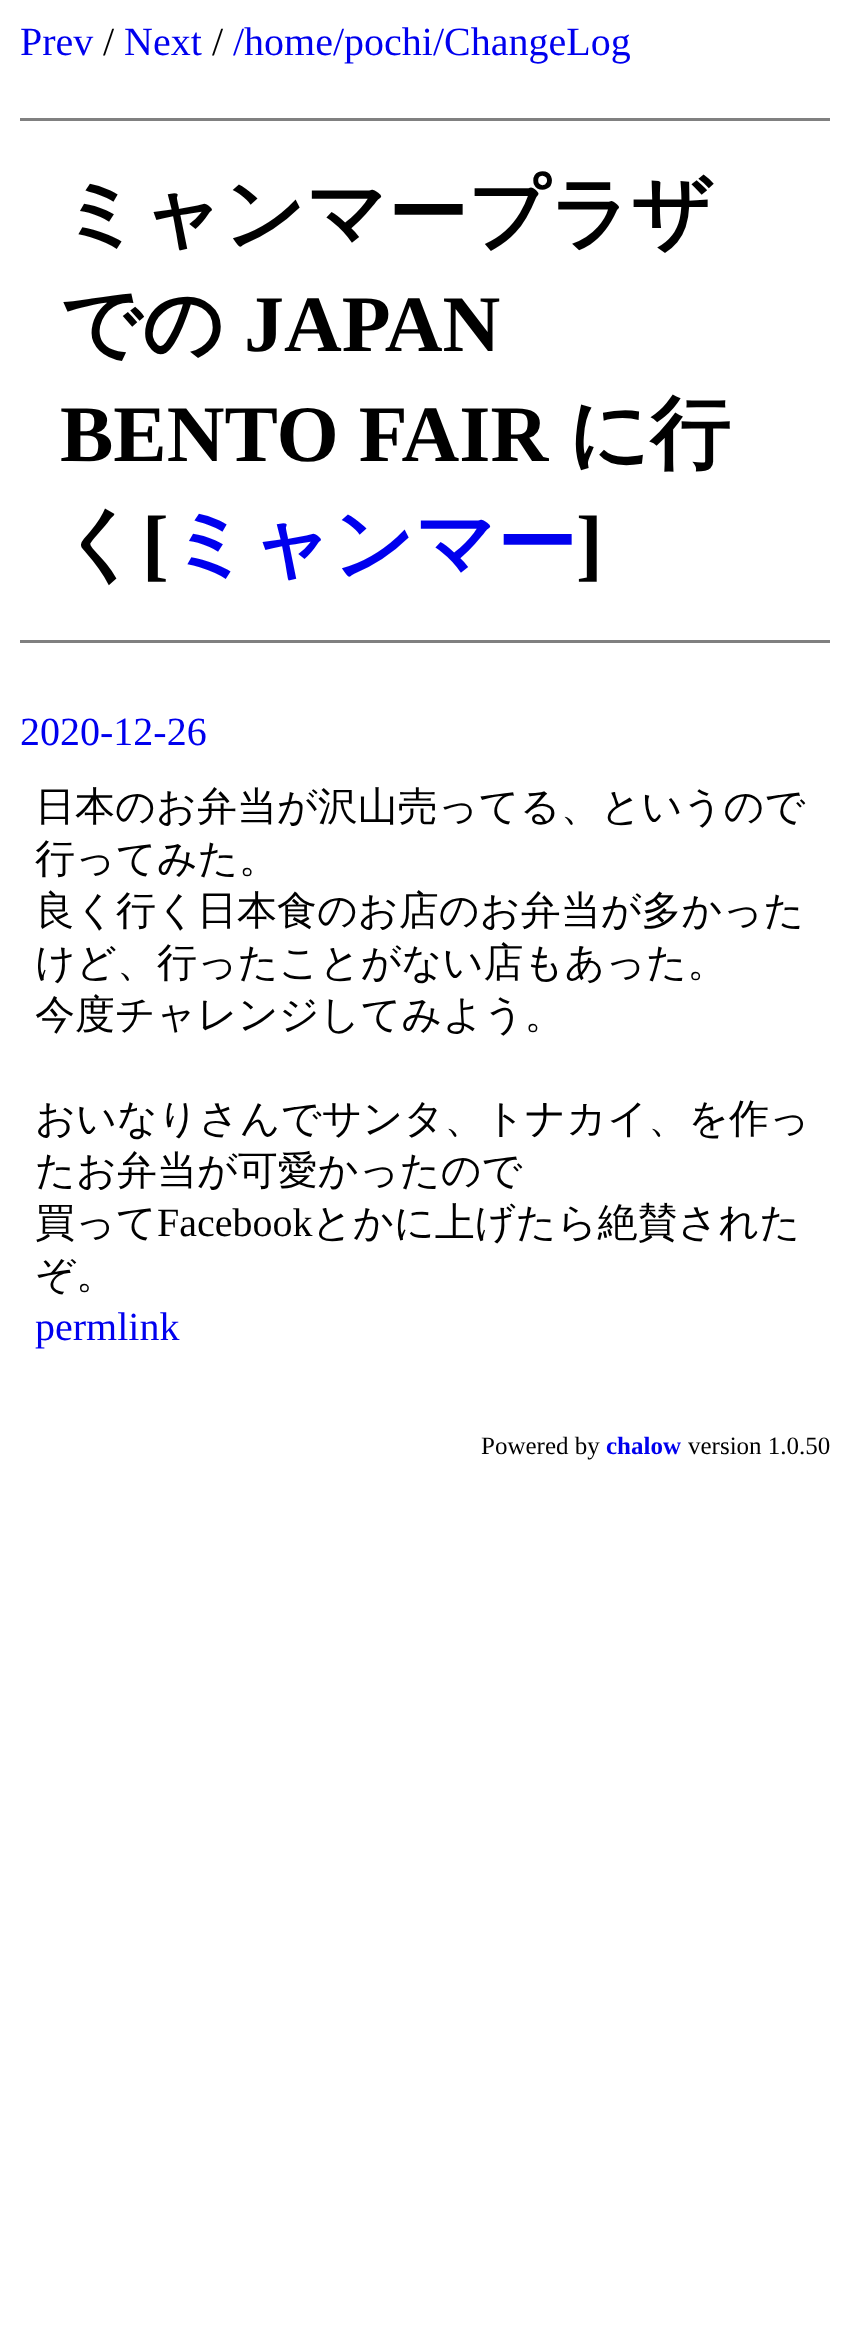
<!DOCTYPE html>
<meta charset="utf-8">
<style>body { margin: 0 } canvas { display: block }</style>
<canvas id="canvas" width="849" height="2348"></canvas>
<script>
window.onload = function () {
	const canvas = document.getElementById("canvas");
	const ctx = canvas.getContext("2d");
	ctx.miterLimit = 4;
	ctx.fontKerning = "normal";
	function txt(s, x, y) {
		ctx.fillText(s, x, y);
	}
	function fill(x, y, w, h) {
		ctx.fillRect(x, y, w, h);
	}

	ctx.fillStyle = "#FFFFFF";
	fill(0, 0, 849, 2348);
	ctx.fillStyle = "#808080";
	fill(20, 118, 810, 3);
	fill(20, 640, 810, 3);
	ctx.font = "40px Liberation Serif";
	ctx.fillStyle = "#0000EE";
	txt("Prev", 20, 55);
	ctx.fillStyle = "#000000";
	txt("/", 103, 55);
	ctx.fillStyle = "#0000EE";
	txt("Next", 124, 55);
	ctx.fillStyle = "#000000";
	txt("/", 212, 55);
	ctx.fillStyle = "#0000EE";
	txt("/home/pochi/ChangeLog", 233, 55);
	ctx.font = "bold 80px WenQuanYi Zen Hei";
	ctx.fillStyle = "#000000";
	txt("ミャンマープラザ", 60, 241);
	txt("での", 60, 351);
	ctx.font = "bold 80px Liberation Serif";
	txt("JAPAN", 244, 351);
	txt("BENTO FAIR", 60, 461);
	ctx.font = "bold 80px WenQuanYi Zen Hei";
	txt("に行", 568, 461);
	txt("く", 60, 571);
	ctx.font = "bold 80px Liberation Serif";
	txt("[", 142, 571);
	ctx.font = "bold 80px WenQuanYi Zen Hei";
	ctx.fillStyle = "#0000EE";
	txt("ミャンマー", 169, 571);
	ctx.font = "bold 80px Liberation Serif";
	ctx.fillStyle = "#000000";
	txt("]", 576, 571);
	ctx.font = "40px Liberation Serif";
	ctx.fillStyle = "#0000EE";
	txt("2020-12-26", 20, 745);
	ctx.font = "500 40px WenQuanYi Zen Hei";
	ctx.fillStyle = "#000000";
	txt("日本のお弁当が沢山売ってる、というので", 35, 820);
	txt("行ってみた。", 35, 872);
	txt("良く行く日本食のお店のお弁当が多かった", 35, 924);
	txt("けど、行ったことがない店もあった。", 35, 976);
	txt("今度チャレンジしてみよう。", 35, 1028);
	txt("おいなりさんでサンタ、トナカイ、を作っ", 35, 1132);
	txt("たお弁当が可愛かったので", 35, 1184);
	txt("買って", 35, 1236);
	ctx.font = "40px Liberation Serif";
	txt("Facebook", 157, 1236);
	ctx.font = "500 40px WenQuanYi Zen Hei";
	txt("とかに上げたら絶賛された", 312, 1236);
	txt("ぞ。", 35, 1288);
	ctx.font = "40px Liberation Serif";
	ctx.fillStyle = "#0000EE";
	txt("permlink", 35, 1340);
	ctx.font = "25px Liberation Serif";
	ctx.fillStyle = "#000000";
	txt("Powered by", 481, 1454);
	ctx.font = "bold 25px Liberation Serif";
	ctx.fillStyle = "#0000EE";
	txt("chalow", 606, 1454);
	ctx.font = "25px Liberation Serif";
	ctx.fillStyle = "#000000";
	txt("version 1.0.50", 688, 1454);
};
</script>
